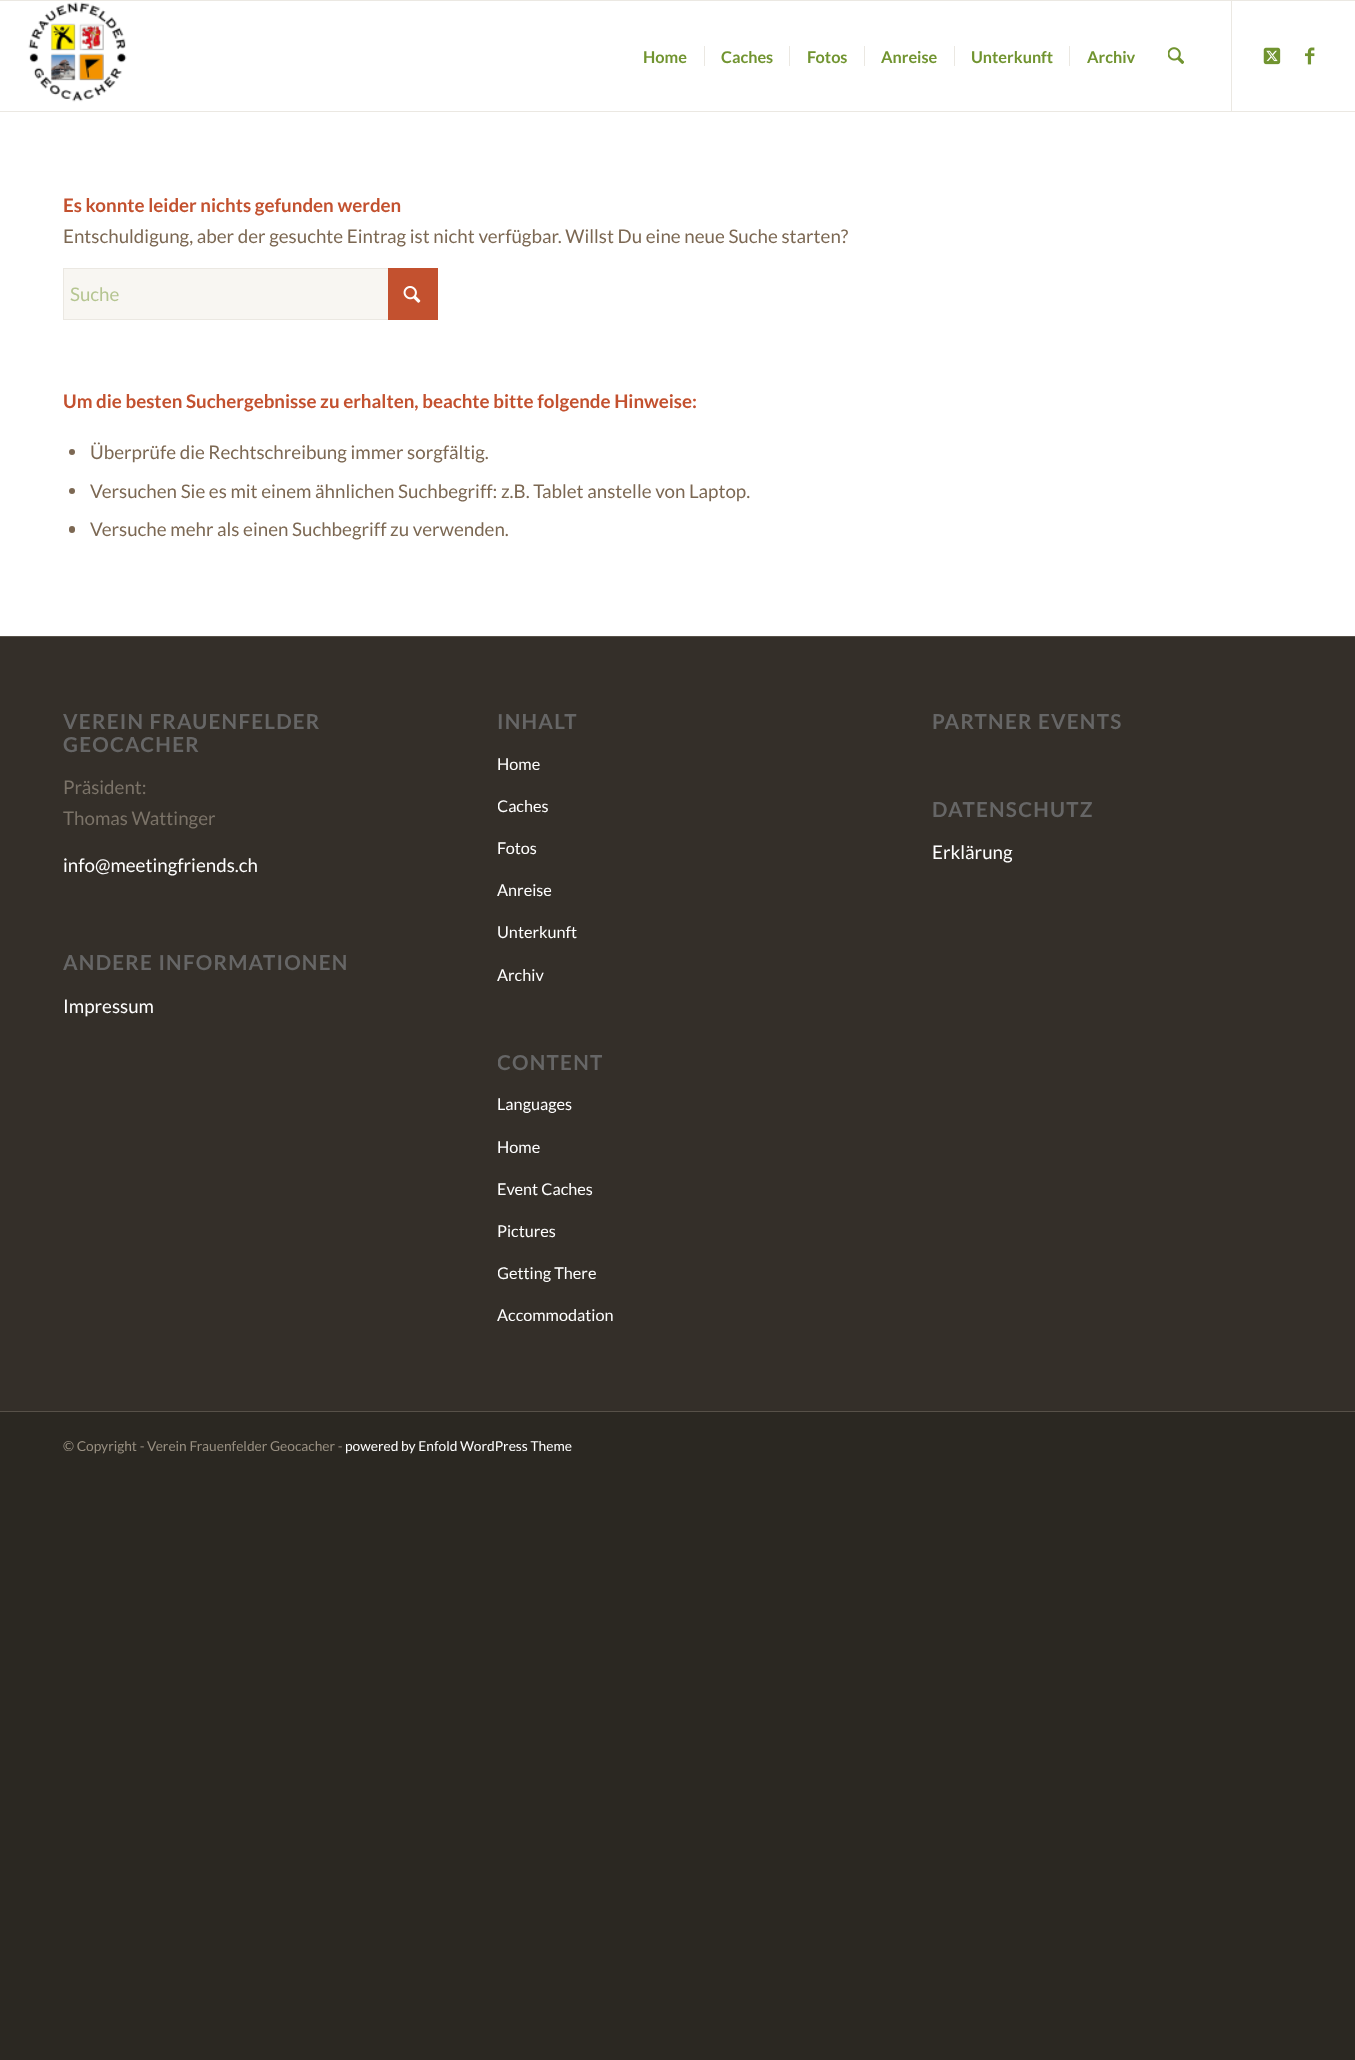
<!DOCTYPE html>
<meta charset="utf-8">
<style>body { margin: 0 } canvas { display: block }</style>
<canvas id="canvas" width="1355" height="2060"></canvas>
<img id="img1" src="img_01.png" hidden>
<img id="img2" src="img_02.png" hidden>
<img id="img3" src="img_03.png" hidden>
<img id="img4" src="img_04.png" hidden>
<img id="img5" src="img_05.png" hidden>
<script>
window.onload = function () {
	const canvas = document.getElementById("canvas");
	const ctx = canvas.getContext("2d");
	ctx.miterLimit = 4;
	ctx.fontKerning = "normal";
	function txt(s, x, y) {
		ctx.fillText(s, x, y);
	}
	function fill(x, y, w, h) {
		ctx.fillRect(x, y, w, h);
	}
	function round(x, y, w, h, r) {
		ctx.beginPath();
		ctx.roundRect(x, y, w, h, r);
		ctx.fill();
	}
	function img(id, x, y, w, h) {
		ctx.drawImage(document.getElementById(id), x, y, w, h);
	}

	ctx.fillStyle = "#2B2822";
	fill(0, 0, 1355, 2060);
	ctx.fillStyle = "#FFFFFF";
	fill(0, 1, 1355, 635);
	ctx.fillStyle = "#EBE8E2";
	fill(0, 0, 1355, 1);
	fill(0, 111, 1355, 1);
	img("img1", 28, 2, 99, 100);
	fill(1231, 1, 1, 110);
	fill(704, 46, 1, 20);
	fill(789, 46, 1, 20);
	fill(864, 46, 1, 20);
	fill(954, 46, 1, 20);
	fill(1069, 46, 1, 20);
	img("img2", 1168, 47, 16, 17);
	img("img3", 1263, 47, 18, 18);
	img("img4", 1305, 47, 10, 18);
	ctx.fillStyle = "#F8F6F2";
	fill(64, 269, 324, 50);
	ctx.strokeStyle = "#EBE8E2";
	ctx.strokeRect(63.5, 268.5, 374, 51);
	ctx.fillStyle = "#C3512F";
	fill(388, 268, 50, 52);
	img("img5", 403, 286, 18, 17);
	ctx.fillStyle = "#7C6853";
	ctx.beginPath();
	ctx.arc(72, 452, 3, 0, Math.PI * 2);
	ctx.fill();
	ctx.beginPath();
	ctx.arc(72, 491, 3, 0, Math.PI * 2);
	ctx.fill();
	round(69, 526, 6, 7, 3);
	ctx.fillStyle = "#342F29";
	fill(0, 637, 1355, 774);
	ctx.fillStyle = "#575149";
	fill(0, 636, 1355, 1);
	fill(0, 1411, 1355, 1);
	ctx.font = "bold 16.25px Lato";
	ctx.fillStyle = "#719430";
	txt("Home", 643, 63);
	txt("Caches", 721, 63);
	txt("Fotos", 807, 63);
	txt("Anreise", 881, 63);
	txt("Unterkunft", 971, 63);
	txt("Archiv", 1087, 63);
	ctx.font = "bold 18.75px Lato";
	ctx.fillStyle = "#C3512F";
	txt("Es konnte leider nichts gefunden werden", 63, 212);
	ctx.font = "18.75px Lato";
	ctx.fillStyle = "#7C6853";
	txt("Entschuldigung, aber der gesuchte Eintrag ist nicht verfügbar. Willst Du eine neue Suche starten?", 63, 243);
	ctx.fillStyle = "#B5C591";
	txt("Suche", 70, 301);
	ctx.font = "bold 18.75px Lato";
	ctx.fillStyle = "#C3512F";
	txt("Um die besten Suchergebnisse zu erhalten, beachte bitte folgende Hinweise:", 63, 408);
	ctx.font = "18.75px Lato";
	ctx.fillStyle = "#7C6853";
	txt("Überprüfe die Rechtschreibung immer sorgfältig.", 90, 459);
	txt("Versuchen Sie es mit einem ähnlichen Suchbegriff: z.B. Tablet anstelle von Laptop.", 90, 498);
	txt("Versuche mehr als einen Suchbegriff zu verwenden.", 90, 536);
	ctx.letterSpacing = "1.25px";
	ctx.font = "bold 20.6px Lato";
	ctx.fillStyle = "#666666";
	txt("VEREIN FRAUENFELDER", 63, 729);
	txt("GEOCACHER", 63, 752);
	ctx.letterSpacing = "0px";
	ctx.font = "18.75px Lato";
	ctx.fillStyle = "#7B7368";
	txt("Präsident:", 63, 794);
	txt("Thomas Wattinger", 63, 825);
	ctx.fillStyle = "#FFFFFF";
	txt("info@meetingfriends.ch", 63, 872);
	ctx.letterSpacing = "1.25px";
	ctx.font = "bold 20.6px Lato";
	ctx.fillStyle = "#666666";
	txt("ANDERE INFORMATIONEN", 63, 970);
	ctx.letterSpacing = "0px";
	ctx.font = "18.75px Lato";
	ctx.fillStyle = "#FFFFFF";
	txt("Impressum", 63, 1013);
	ctx.letterSpacing = "1.25px";
	ctx.font = "bold 20.6px Lato";
	ctx.fillStyle = "#666666";
	txt("INHALT", 497, 729);
	ctx.letterSpacing = "0px";
	ctx.font = "16.25px Lato";
	ctx.fillStyle = "#FFFFFF";
	txt("Home", 497, 770);
	ctx.save();
	ctx.beginPath();
	ctx.rect(498, 694, 360, 302);
	ctx.clip();
	txt("Caches", 497, 812);
	ctx.restore();
	txt("Fotos", 497, 854);
	txt("Anreise", 497, 896);
	txt("Unterkunft", 497, 938);
	txt("Archiv", 497, 981);
	ctx.save();
	ctx.beginPath();
	ctx.rect(498, 1034, 360, 304);
	ctx.clip();
	ctx.letterSpacing = "1.25px";
	ctx.font = "bold 20.6px Lato";
	ctx.fillStyle = "#666666";
	txt("CONTENT", 497, 1070);
	ctx.restore();
	txt("Languages", 497, 1110);
	txt("Home", 497, 1153);
	txt("Event Caches", 497, 1195);
	txt("Pictures", 497, 1237);
	ctx.save();
	ctx.beginPath();
	ctx.rect(498, 1034, 360, 304);
	ctx.clip();
	txt("Getting There", 497, 1279);
	ctx.restore();
	txt("Accommodation", 497, 1321);
	ctx.letterSpacing = "1.25px";
	ctx.font = "bold 20.6px Lato";
	ctx.fillStyle = "#666666";
	txt("PARTNER EVENTS", 932, 729);
	txt("DATENSCHUTZ", 932, 817);
	ctx.letterSpacing = "0px";
	ctx.font = "18.75px Lato";
	ctx.fillStyle = "#FFFFFF";
	txt("Erklärung", 932, 859);
	ctx.font = "13.75px Lato";
	ctx.fillStyle = "#988F81";
	txt("© Copyright - Verein Frauenfelder Geocacher -", 63, 1451);
	ctx.fillStyle = "#FFFFFF";
	txt("powered by Enfold WordPress Theme", 345, 1451);
};
</script>
